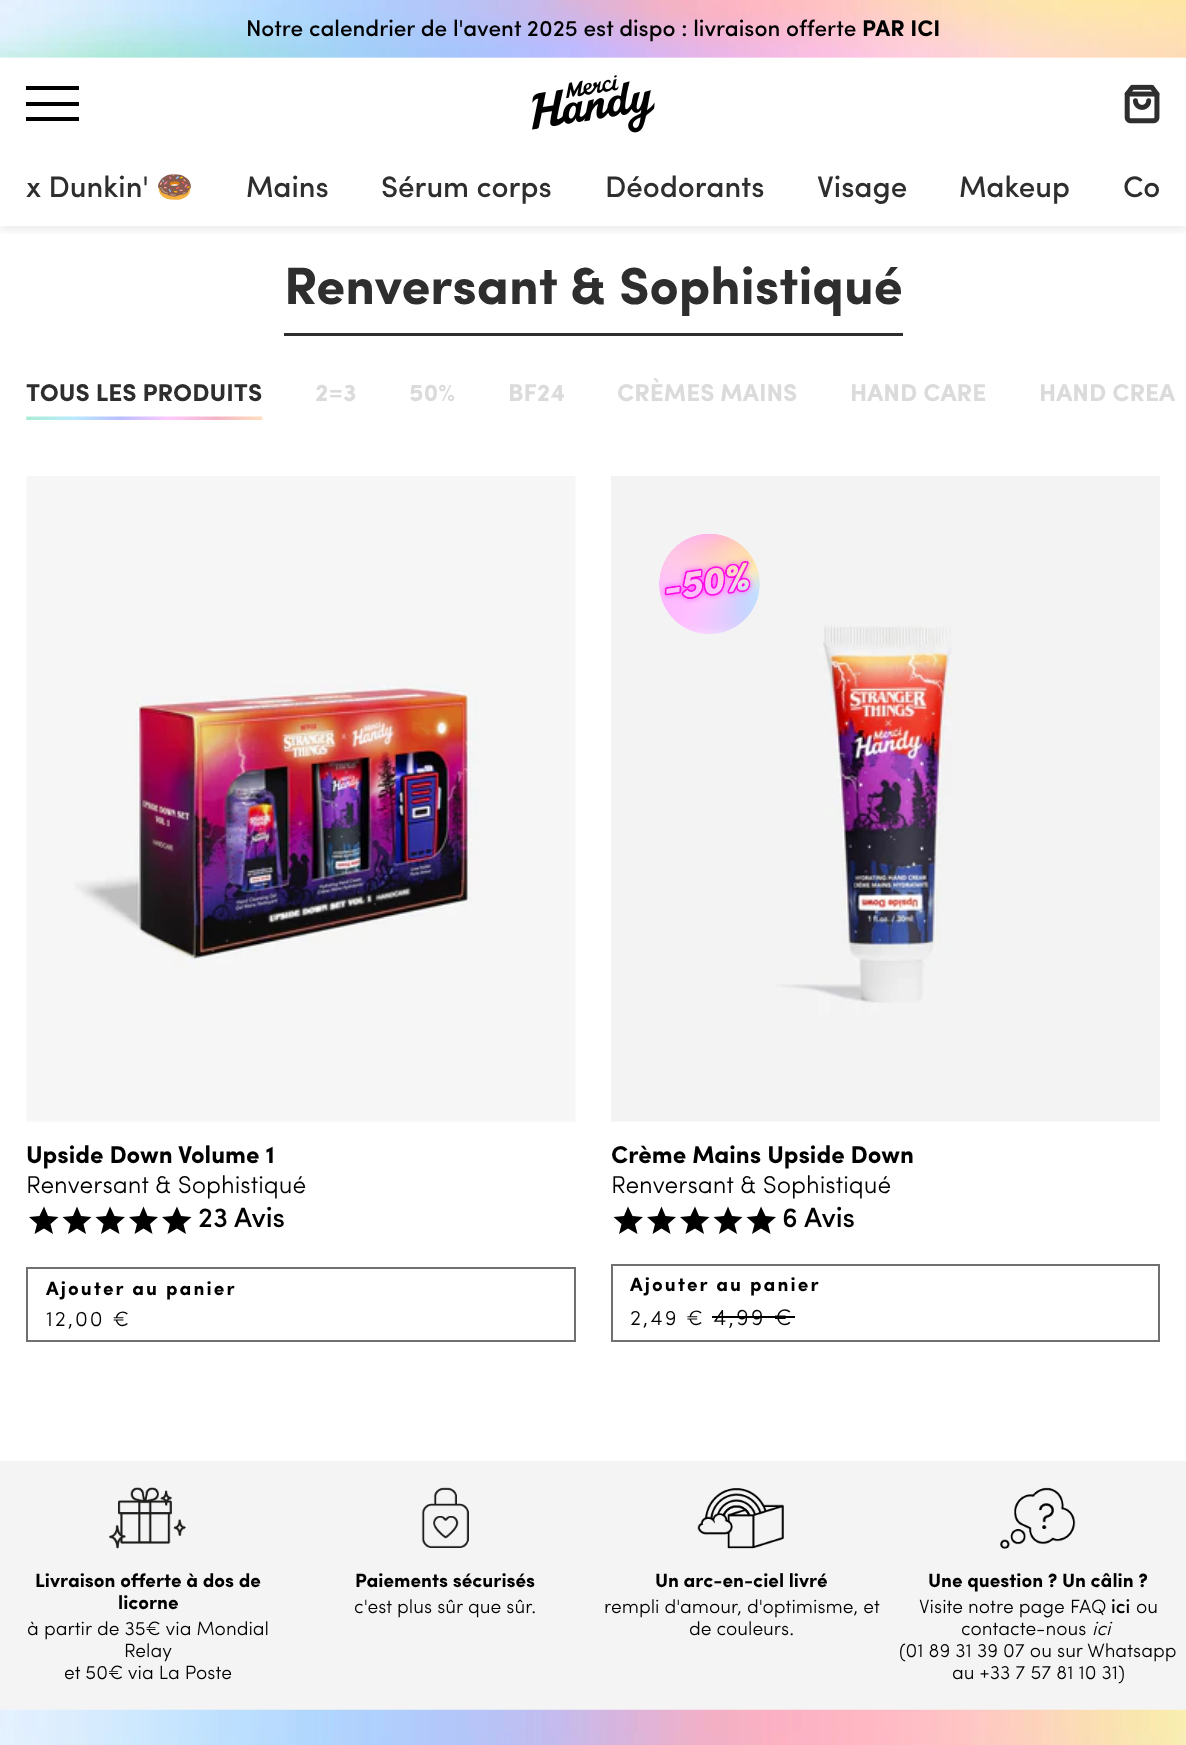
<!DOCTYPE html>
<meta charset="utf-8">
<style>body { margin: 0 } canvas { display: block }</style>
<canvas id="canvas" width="1186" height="1745"></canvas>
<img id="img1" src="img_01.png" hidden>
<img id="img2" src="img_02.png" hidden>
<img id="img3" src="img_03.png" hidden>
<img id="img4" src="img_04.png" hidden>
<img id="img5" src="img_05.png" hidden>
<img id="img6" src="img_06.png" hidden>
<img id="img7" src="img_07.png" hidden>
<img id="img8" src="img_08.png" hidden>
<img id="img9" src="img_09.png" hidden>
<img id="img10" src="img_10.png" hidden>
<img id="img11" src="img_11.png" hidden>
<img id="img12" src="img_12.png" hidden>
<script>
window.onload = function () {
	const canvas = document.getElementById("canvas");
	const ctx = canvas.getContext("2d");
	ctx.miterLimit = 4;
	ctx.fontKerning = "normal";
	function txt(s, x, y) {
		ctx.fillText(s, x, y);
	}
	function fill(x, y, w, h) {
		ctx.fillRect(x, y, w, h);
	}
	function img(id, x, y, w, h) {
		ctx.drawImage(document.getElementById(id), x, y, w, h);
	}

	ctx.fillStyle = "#FFFFFF";
	fill(0, 0, 1186, 1745);
	ctx.save();
	ctx.beginPath();
	ctx.rect(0, 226, 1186, 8);
	ctx.clip();
	ctx.fillStyle = "rgba(0, 0, 0, 0.07)";
	ctx.filter = "blur(5px)";
	ctx.beginPath();
	ctx.rect(0, 63, 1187, 168);
	ctx.fill();
	ctx.filter = "none";
	ctx.restore();
	img("img1", 0, 0, 1186, 58);
	ctx.fillStyle = "#000000";
	fill(26, 102, 53, 4);
	fill(26, 86, 53, 4);
	fill(26, 117, 53, 4);
	img("img2", 532, 75, 123, 58);
	img("img3", 1124, 84, 36, 40);
	ctx.fillStyle = "#2E2E2E";
	fill(284, 333, 619, 3);
	img("img4", 26, 416, 237, 4);
	img("img5", 26, 476, 550, 646);
	ctx.fillStyle = "#000000";
	ctx.beginPath();
	ctx.moveTo(44, 1228.5);
	ctx.lineTo(34.5, 1234);
	ctx.lineTo(37, 1224);
	ctx.lineTo(29, 1217);
	ctx.lineTo(39.5, 1216);
	ctx.lineTo(44, 1206.5);
	ctx.lineTo(48, 1216);
	ctx.lineTo(58.5, 1217);
	ctx.lineTo(50.5, 1224);
	ctx.lineTo(53, 1234);
	ctx.closePath();
	ctx.moveTo(77, 1228.5);
	ctx.lineTo(68, 1234);
	ctx.lineTo(70.5, 1224);
	ctx.lineTo(62.5, 1217);
	ctx.lineTo(73, 1216);
	ctx.lineTo(77, 1206.5);
	ctx.lineTo(81, 1216);
	ctx.lineTo(91.5, 1217);
	ctx.lineTo(83.5, 1224);
	ctx.lineTo(86, 1234);
	ctx.closePath();
	ctx.fill();
	ctx.beginPath();
	ctx.moveTo(110, 1228.5);
	ctx.lineTo(101, 1234);
	ctx.lineTo(103.5, 1224);
	ctx.lineTo(95.5, 1217);
	ctx.lineTo(106, 1216);
	ctx.lineTo(110, 1206.5);
	ctx.lineTo(114.5, 1216);
	ctx.lineTo(125, 1217);
	ctx.lineTo(117, 1224);
	ctx.lineTo(119.5, 1234);
	ctx.closePath();
	ctx.moveTo(143.5, 1228.5);
	ctx.lineTo(134.5, 1234);
	ctx.lineTo(137, 1224);
	ctx.lineTo(129, 1217);
	ctx.lineTo(139.5, 1216);
	ctx.lineTo(143.5, 1206.5);
	ctx.lineTo(147.5, 1216);
	ctx.lineTo(158, 1217);
	ctx.lineTo(150, 1224);
	ctx.lineTo(152.5, 1234);
	ctx.closePath();
	ctx.fill();
	ctx.beginPath();
	ctx.moveTo(177, 1228.5);
	ctx.lineTo(167.5, 1234);
	ctx.lineTo(170, 1224);
	ctx.lineTo(162, 1217);
	ctx.lineTo(172.5, 1216);
	ctx.lineTo(177, 1206.5);
	ctx.lineTo(181, 1216);
	ctx.lineTo(191.5, 1217);
	ctx.lineTo(183.5, 1224);
	ctx.lineTo(186, 1234);
	ctx.closePath();
	ctx.fill();
	ctx.strokeStyle = "#707070";
	ctx.lineWidth = 2;
	ctx.strokeRect(27, 1268, 548, 73);
	img("img6", 611, 476, 549, 646);
	img("img7", 659, 534, 101, 100);
	ctx.beginPath();
	ctx.moveTo(628, 1228.5);
	ctx.lineTo(619, 1234);
	ctx.lineTo(621.5, 1224);
	ctx.lineTo(613.5, 1217);
	ctx.lineTo(624, 1216);
	ctx.lineTo(628, 1206.5);
	ctx.lineTo(632.5, 1216);
	ctx.lineTo(643, 1217);
	ctx.lineTo(635, 1224);
	ctx.lineTo(637.5, 1234);
	ctx.closePath();
	ctx.moveTo(661.5, 1228.5);
	ctx.lineTo(652.5, 1234);
	ctx.lineTo(655, 1224);
	ctx.lineTo(647, 1217);
	ctx.lineTo(657.5, 1216);
	ctx.lineTo(661.5, 1206.5);
	ctx.lineTo(665.5, 1216);
	ctx.lineTo(676, 1217);
	ctx.lineTo(668, 1224);
	ctx.lineTo(670.5, 1234);
	ctx.closePath();
	ctx.fill();
	ctx.beginPath();
	ctx.moveTo(695, 1228.5);
	ctx.lineTo(685.5, 1234);
	ctx.lineTo(688, 1224);
	ctx.lineTo(680, 1217);
	ctx.lineTo(690.5, 1216);
	ctx.lineTo(695, 1206.5);
	ctx.lineTo(699, 1216);
	ctx.lineTo(709.5, 1217);
	ctx.lineTo(701.5, 1224);
	ctx.lineTo(704, 1234);
	ctx.closePath();
	ctx.moveTo(728, 1228.5);
	ctx.lineTo(719, 1234);
	ctx.lineTo(721.5, 1224);
	ctx.lineTo(713.5, 1217);
	ctx.lineTo(724, 1216);
	ctx.lineTo(728, 1206.5);
	ctx.lineTo(732, 1216);
	ctx.lineTo(742.5, 1217);
	ctx.lineTo(734.5, 1224);
	ctx.lineTo(737, 1234);
	ctx.closePath();
	ctx.fill();
	ctx.beginPath();
	ctx.moveTo(761, 1228.5);
	ctx.lineTo(752, 1234);
	ctx.lineTo(754.5, 1224);
	ctx.lineTo(746.5, 1217);
	ctx.lineTo(757, 1216);
	ctx.lineTo(761, 1206.5);
	ctx.lineTo(765.5, 1216);
	ctx.lineTo(776, 1217);
	ctx.lineTo(768, 1224);
	ctx.lineTo(770.5, 1234);
	ctx.closePath();
	ctx.fill();
	ctx.strokeRect(612, 1265, 547, 76);
	fill(712, 1316, 83, 2);
	ctx.fillStyle = "#F4F4F4";
	fill(0, 1461, 1186, 249);
	img("img8", 109, 1487, 77, 62);
	img("img9", 421, 1487, 48, 61);
	img("img10", 697, 1488, 87, 61);
	img("img11", 1000, 1487, 76, 62);
	img("img12", 0, 1709, 1186, 36);
	ctx.font = "500 22.75px Sofia";
	ctx.fillStyle = "#000000";
	txt("Notre calendrier de l'avent 2025 est dispo : livraison offerte", 246, 36);
	ctx.font = "bold 22.75px Sofia";
	txt("PAR ICI", 862, 36);
	ctx.font = "500 29.75px Sofia";
	ctx.fillStyle = "#2E2E2E";
	txt("x Dunkin'", 26, 197);
	ctx.font = "29.75px Noto Color Emoji";
	txt("🍩", 156, 197);
	ctx.font = "500 29.75px Sofia";
	txt("Mains", 246, 197);
	txt("Sérum corps", 381, 197);
	txt("Déodorants", 605, 197);
	txt("Visage", 817, 197);
	txt("Makeup", 959, 197);
	txt("Co", 1123, 197);
	ctx.font = "bold 52.5px Sofia";
	txt("Renversant & Sophistiqué", 284, 304);
	ctx.font = "bold 24.5px Sofia";
	txt("TOUS LES PRODUITS", 26, 401);
	ctx.fillStyle = "#DBDBDB";
	txt("2=3", 315, 401);
	txt("50%", 409, 401);
	txt("BF24", 508, 401);
	txt("CRÈMES MAINS", 617, 401);
	txt("HAND CARE", 850, 401);
	txt("HAND CREA", 1039, 401);
	ctx.fillStyle = "#000000";
	txt("Upside Down Volume 1", 26, 1163);
	ctx.font = "300 24.5px Sofia";
	txt("Renversant & Sophistiqué", 26, 1193);
	ctx.font = "500 28px Sofia";
	txt("23", 198, 1227);
	txt("Avis", 234, 1227);
	ctx.letterSpacing = "2.1px";
	ctx.font = "bold 19.25px Sofia";
	txt("Ajouter au panier", 46, 1295);
	ctx.font = "300 21px Sofia";
	txt("12,00 €", 46, 1326);
	ctx.letterSpacing = "0px";
	ctx.font = "bold 24.5px Sofia";
	txt("Crème Mains Upside Down", 611, 1163);
	ctx.font = "300 24.5px Sofia";
	txt("Renversant & Sophistiqué", 611, 1193);
	ctx.font = "500 28px Sofia";
	txt("6", 782, 1227);
	txt("Avis", 804, 1227);
	ctx.letterSpacing = "2.1px";
	ctx.font = "bold 19.25px Sofia";
	txt("Ajouter au panier", 630, 1291);
	ctx.font = "300 21px Sofia";
	txt("2,49 €", 630, 1325);
	ctx.font = "300 22.75px Sofia";
	txt("4,99 €", 713, 1325);
	ctx.letterSpacing = "0px";
	ctx.font = "bold 19.25px Sofia";
	txt("Livraison offerte à dos de", 35, 1587);
	txt("licorne", 118, 1609);
	ctx.font = "300 19.25px Sofia";
	txt("à partir de 35€ via Mondial", 27, 1635);
	txt("Relay", 124, 1657);
	txt("et 50€ via La Poste", 64, 1679);
	ctx.font = "bold 19.25px Sofia";
	txt("Paiements sécurisés", 355, 1587);
	ctx.font = "300 19.25px Sofia";
	txt("c'est plus sûr que sûr.", 354, 1613);
	ctx.font = "bold 19.25px Sofia";
	txt("Un arc-en-ciel livré", 655, 1587);
	ctx.font = "300 19.25px Sofia";
	txt("rempli d'amour, d'optimisme, et", 604, 1613);
	txt("de couleurs.", 689, 1635);
	ctx.font = "bold 19.25px Sofia";
	txt("Une question ? Un câlin ?", 928, 1587);
	ctx.font = "300 19.25px Sofia";
	txt("Visite notre page FAQ", 919, 1613);
	ctx.font = "500 19.25px Sofia";
	txt("ici", 1111, 1613);
	ctx.font = "300 19.25px Sofia";
	txt("ou", 1136, 1613);
	txt("contacte-nous", 961, 1635);
	ctx.font = "italic 300 19.25px Sofia";
	txt("ici", 1092, 1635);
	ctx.font = "300 19.25px Sofia";
	txt("(01 89 31 39 07 ou sur Whatsapp", 899, 1657);
	txt("au +33 7 57 81 10 31)", 952, 1679);
};
</script>
